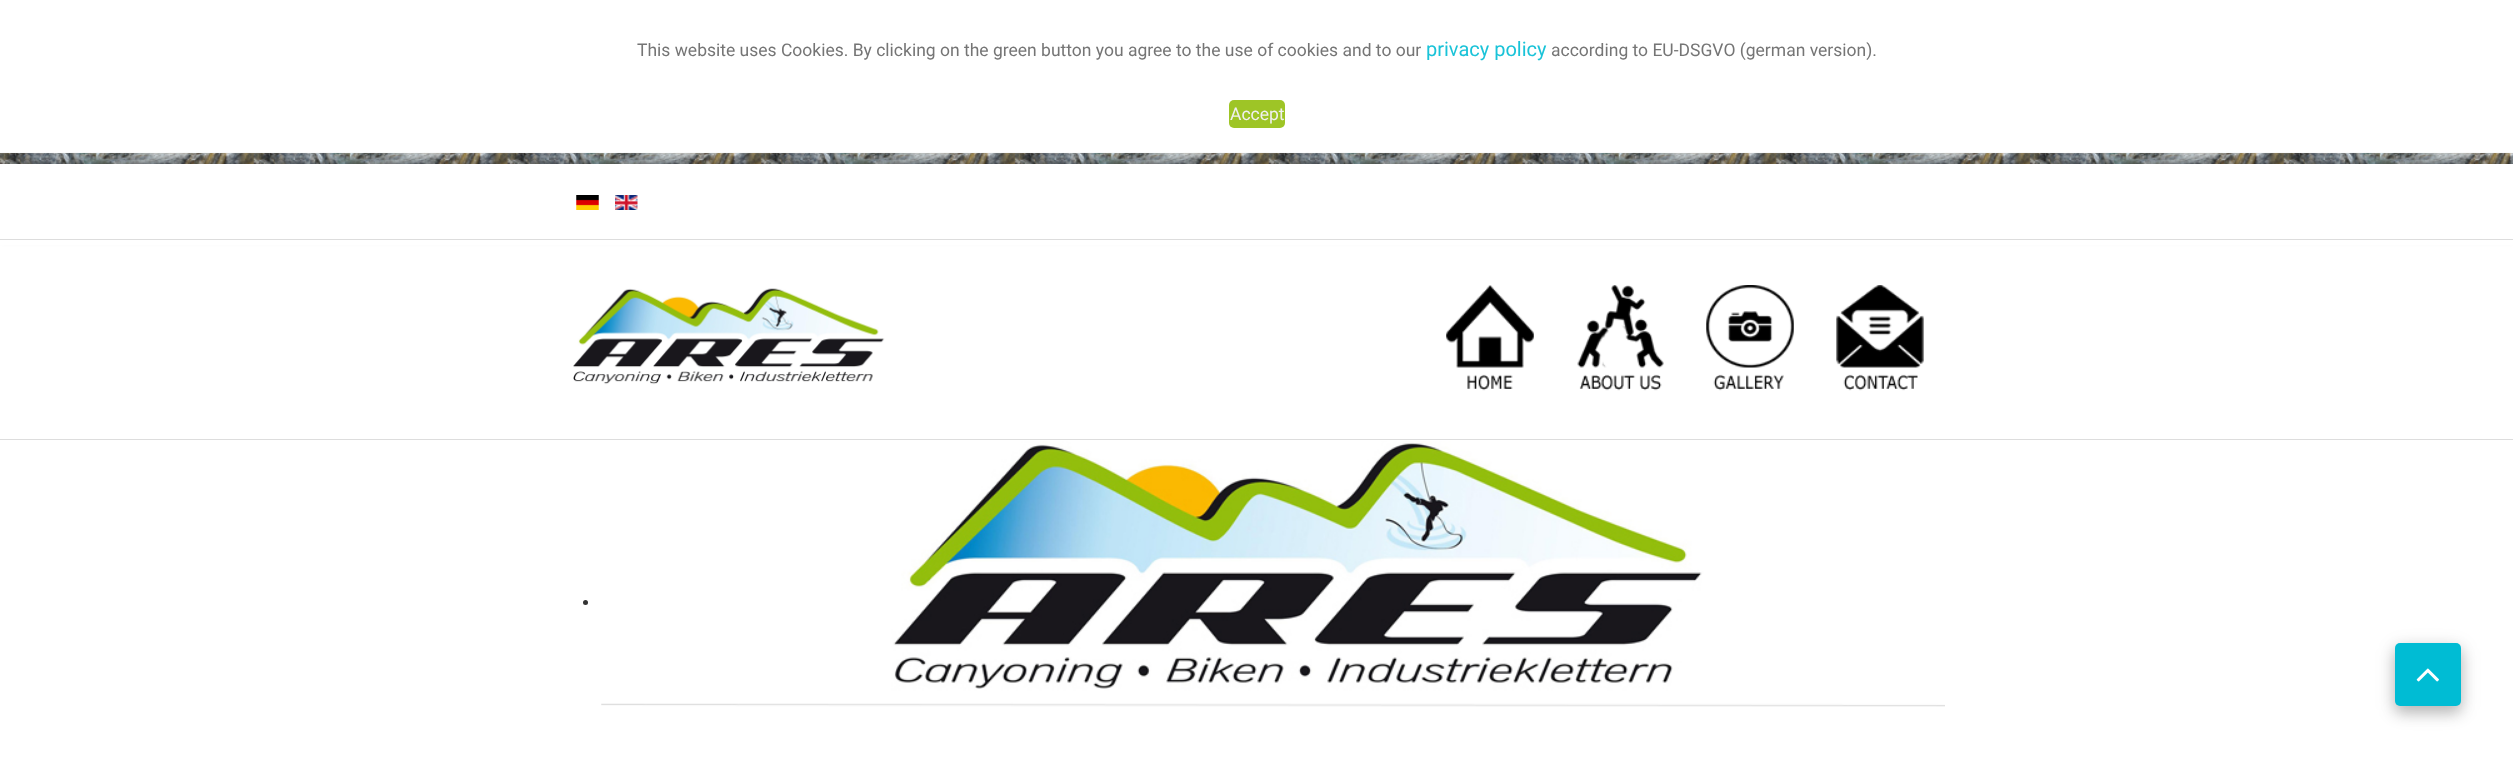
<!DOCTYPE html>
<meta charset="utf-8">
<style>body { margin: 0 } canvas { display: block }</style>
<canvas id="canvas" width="2513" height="758"></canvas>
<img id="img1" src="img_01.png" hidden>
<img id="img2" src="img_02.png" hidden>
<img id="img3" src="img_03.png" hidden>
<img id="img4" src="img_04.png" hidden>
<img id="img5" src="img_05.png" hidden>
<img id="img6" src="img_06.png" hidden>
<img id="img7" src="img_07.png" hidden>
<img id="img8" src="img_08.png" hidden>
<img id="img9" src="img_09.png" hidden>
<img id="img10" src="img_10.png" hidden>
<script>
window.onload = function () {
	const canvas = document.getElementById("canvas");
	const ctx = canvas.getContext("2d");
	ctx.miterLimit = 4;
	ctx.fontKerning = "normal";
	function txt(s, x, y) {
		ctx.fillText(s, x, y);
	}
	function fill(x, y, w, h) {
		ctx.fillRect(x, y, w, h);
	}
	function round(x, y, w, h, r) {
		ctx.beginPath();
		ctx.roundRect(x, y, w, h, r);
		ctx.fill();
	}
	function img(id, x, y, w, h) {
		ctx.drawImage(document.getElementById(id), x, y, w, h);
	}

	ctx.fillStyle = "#FFFFFF";
	fill(0, 0, 2513, 758);
	img("img1", 0, 152, 2513, 12);
	ctx.fillStyle = "rgba(0, 0, 0, 0.27)";
	ctx.filter = "blur(4px)";
	ctx.beginPath();
	ctx.rect(0, 164, 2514, 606);
	ctx.fill();
	ctx.filter = "none";
	ctx.fillStyle = "rgba(255, 255, 255, 0.9)";
	fill(0, 152, 2513, 1);
	ctx.fillStyle = "#9EC526";
	round(1229, 100, 56, 28, 5);
	ctx.fillStyle = "#FFFFFF";
	fill(0, 164, 2513, 594);
	ctx.save();
	ctx.beginPath();
	ctx.moveTo(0, 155);
	ctx.lineTo(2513, 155);
	ctx.lineTo(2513, 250);
	ctx.lineTo(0, 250);
	ctx.closePath();
	ctx.moveTo(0, 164);
	ctx.lineTo(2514, 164);
	ctx.lineTo(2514, 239);
	ctx.lineTo(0, 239);
	ctx.closePath();
	ctx.clip("evenodd");
	ctx.fillStyle = "rgba(0, 0, 0, 0.17)";
	ctx.filter = "blur(3px)";
	ctx.beginPath();
	ctx.rect(0, 165, 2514, 75);
	ctx.fill();
	ctx.filter = "none";
	ctx.restore();
	img("img2", 576, 195, 23, 15);
	img("img3", 615, 195, 23, 15);
	fill(0, 240, 2513, 5);
	ctx.fillStyle = "#DDDDDD";
	fill(0, 239, 2513, 1);
	fill(0, 439, 2513, 1);
	img("img4", 573, 288, 312, 97);
	img("img5", 1446, 285, 88, 106);
	img("img6", 1577, 285, 87, 106);
	img("img7", 1706, 285, 88, 106);
	img("img8", 1836, 285, 88, 106);
	ctx.fillStyle = "#333333";
	ctx.beginPath();
	ctx.arc(585.5, 602.5, 2.5, 0, Math.PI * 2);
	ctx.fill();
	img("img9", 601, 441, 1344, 266);
	ctx.fillStyle = "rgba(0, 0, 0, 0.15)";
	ctx.filter = "blur(9.5px)";
	ctx.beginPath();
	ctx.roundRect(2395, 648, 66, 63, 5);
	ctx.fill();
	ctx.filter = "none";
	ctx.fillStyle = "rgba(0, 0, 0, 0.18)";
	ctx.filter = "blur(7px)";
	ctx.beginPath();
	ctx.roundRect(2395, 649, 66, 64, 5);
	ctx.fill();
	ctx.filter = "none";
	ctx.fillStyle = "#00BCD4";
	round(2395, 643, 66, 63, 5);
	img("img10", 2416, 668, 23, 14);
	ctx.font = "17.5px Roboto";
	ctx.fillStyle = "#757575";
	txt("This website uses Cookies. By clicking on the green button you agree to the use of cookies and to our", 637, 56);
	ctx.font = "20px Roboto";
	ctx.fillStyle = "#1AC3D8";
	txt("privacy policy", 1426, 56);
	ctx.font = "17.5px Roboto";
	ctx.fillStyle = "#757575";
	txt("according to EU-DSGVO (german version).", 1551, 56);
	ctx.fillStyle = "#F0F0F0";
	txt("Accept", 1230, 120);
};
</script>
